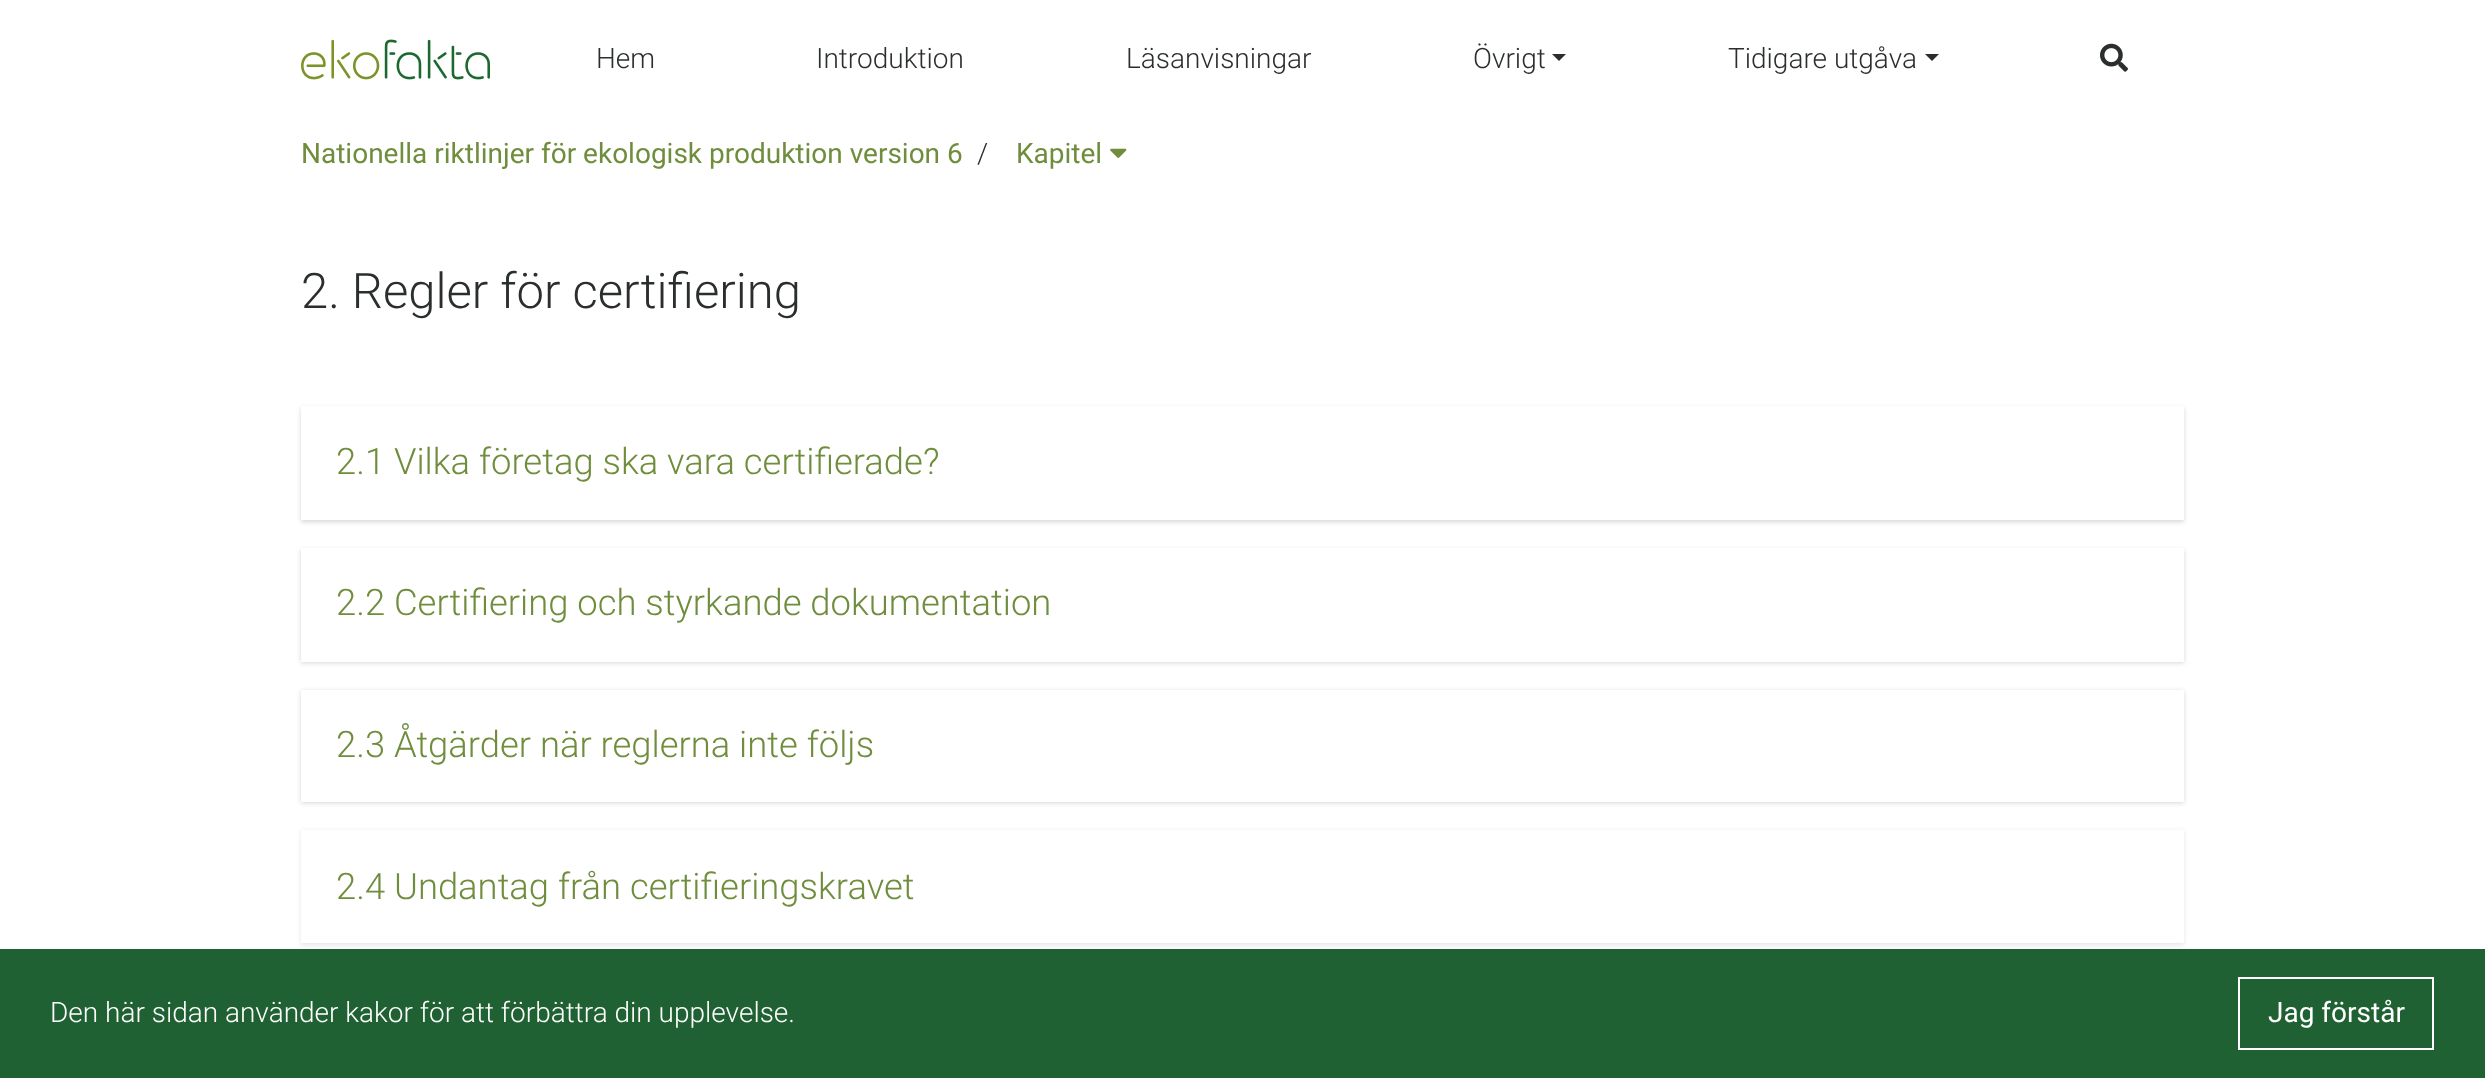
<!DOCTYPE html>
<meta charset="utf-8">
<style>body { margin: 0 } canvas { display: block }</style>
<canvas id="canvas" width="2485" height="1078"></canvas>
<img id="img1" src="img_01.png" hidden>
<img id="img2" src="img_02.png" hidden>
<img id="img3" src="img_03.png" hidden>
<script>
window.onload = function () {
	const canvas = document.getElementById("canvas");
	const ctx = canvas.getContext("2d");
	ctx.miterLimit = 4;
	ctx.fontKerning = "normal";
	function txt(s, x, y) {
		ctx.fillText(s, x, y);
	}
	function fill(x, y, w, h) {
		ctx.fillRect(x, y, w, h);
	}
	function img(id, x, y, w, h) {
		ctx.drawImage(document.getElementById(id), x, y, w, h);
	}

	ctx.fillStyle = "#FFFFFF";
	fill(0, 0, 2485, 1078);
	img("img1", 301, 39, 189, 41);
	ctx.fillStyle = "#2A2E2D";
	ctx.beginPath();
	ctx.moveTo(1552, 54);
	ctx.lineTo(1566, 54);
	ctx.lineTo(1559, 61);
	ctx.closePath();
	ctx.fill();
	ctx.beginPath();
	ctx.moveTo(1925, 54);
	ctx.lineTo(1939, 54);
	ctx.lineTo(1932, 61);
	ctx.closePath();
	ctx.fill();
	img("img2", 2100, 43, 28, 29);
	img("img3", 1110, 148, 17, 10);
	ctx.fillStyle = "rgba(0, 0, 0, 0.06)";
	ctx.filter = "blur(2px)";
	ctx.beginPath();
	ctx.rect(301, 408, 1883, 114);
	ctx.fill();
	ctx.filter = "none";
	ctx.fillStyle = "rgba(0, 0, 0, 0.1)";
	ctx.filter = "blur(2.5px)";
	ctx.beginPath();
	ctx.rect(301, 408, 1883, 114);
	ctx.fill();
	ctx.filter = "none";
	ctx.fillStyle = "#FFFFFF";
	fill(301, 406, 1883, 114);
	ctx.fillStyle = "rgba(0, 0, 0, 0.06)";
	ctx.filter = "blur(2px)";
	ctx.beginPath();
	ctx.rect(301, 550, 1883, 113);
	ctx.fill();
	ctx.filter = "none";
	ctx.fillStyle = "rgba(0, 0, 0, 0.1)";
	ctx.filter = "blur(2.5px)";
	ctx.beginPath();
	ctx.rect(301, 550, 1883, 113);
	ctx.fill();
	ctx.filter = "none";
	ctx.fillStyle = "#FFFFFF";
	fill(301, 548, 1883, 114);
	ctx.fillStyle = "rgba(0, 0, 0, 0.06)";
	ctx.filter = "blur(2px)";
	ctx.beginPath();
	ctx.rect(301, 691, 1883, 112);
	ctx.fill();
	ctx.filter = "none";
	ctx.fillStyle = "rgba(0, 0, 0, 0.1)";
	ctx.filter = "blur(2.5px)";
	ctx.beginPath();
	ctx.rect(301, 691, 1883, 112);
	ctx.fill();
	ctx.filter = "none";
	ctx.fillStyle = "#FFFFFF";
	fill(301, 690, 1883, 112);
	ctx.save();
	ctx.beginPath();
	ctx.moveTo(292, 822);
	ctx.lineTo(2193, 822);
	ctx.lineTo(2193, 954);
	ctx.lineTo(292, 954);
	ctx.closePath();
	ctx.moveTo(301, 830);
	ctx.lineTo(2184, 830);
	ctx.lineTo(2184, 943);
	ctx.lineTo(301, 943);
	ctx.closePath();
	ctx.clip("evenodd");
	ctx.fillStyle = "rgba(0, 0, 0, 0.1)";
	ctx.filter = "blur(2.5px)";
	ctx.beginPath();
	ctx.rect(301, 831, 1883, 114);
	ctx.fill();
	ctx.filter = "none";
	ctx.restore();
	ctx.fillStyle = "#206133";
	fill(0, 949, 2485, 129);
	ctx.strokeStyle = "#FFFFFF";
	ctx.lineWidth = 2;
	ctx.strokeRect(2239, 978, 194, 71);
	ctx.font = "300 28px Roboto";
	ctx.fillStyle = "#2A2E2D";
	txt("Hem", 596, 68);
	txt("Introduktion", 816, 68);
	txt("Läsanvisningar", 1126, 68);
	txt("Övrigt", 1473, 68);
	txt("Tidigare utgåva", 1728, 68);
	ctx.font = "28px Roboto";
	ctx.fillStyle = "#6F8D3C";
	txt("Nationella riktlinjer för ekologisk produktion version 6", 301, 163);
	ctx.font = "300 28px Roboto";
	ctx.fillStyle = "#2A2E2D";
	txt("/", 977, 163);
	ctx.font = "28px Roboto";
	ctx.fillStyle = "#6F8D3C";
	txt("Kapitel", 1016, 163);
	ctx.font = "300 49px Roboto";
	ctx.fillStyle = "#2A2E2D";
	txt("2. Regler för certifiering", 301, 308);
	ctx.font = "300 36.4px Roboto";
	ctx.fillStyle = "#6F8D3C";
	txt("2.1 Vilka företag ska vara certifierade?", 336, 474);
	txt("2.2 Certifiering och styrkande dokumentation", 336, 615);
	txt("2.3 Åtgärder när reglerna inte följs", 336, 757);
	txt("2.4 Undantag från certifieringskravet", 336, 899);
	ctx.font = "300 28px Roboto";
	ctx.fillStyle = "#FFFFFF";
	txt("Den här sidan använder kakor för att förbättra din upplevelse.", 50, 1022);
	ctx.font = "28px Roboto";
	txt("Jag förstår", 2268, 1022);
};
</script>
